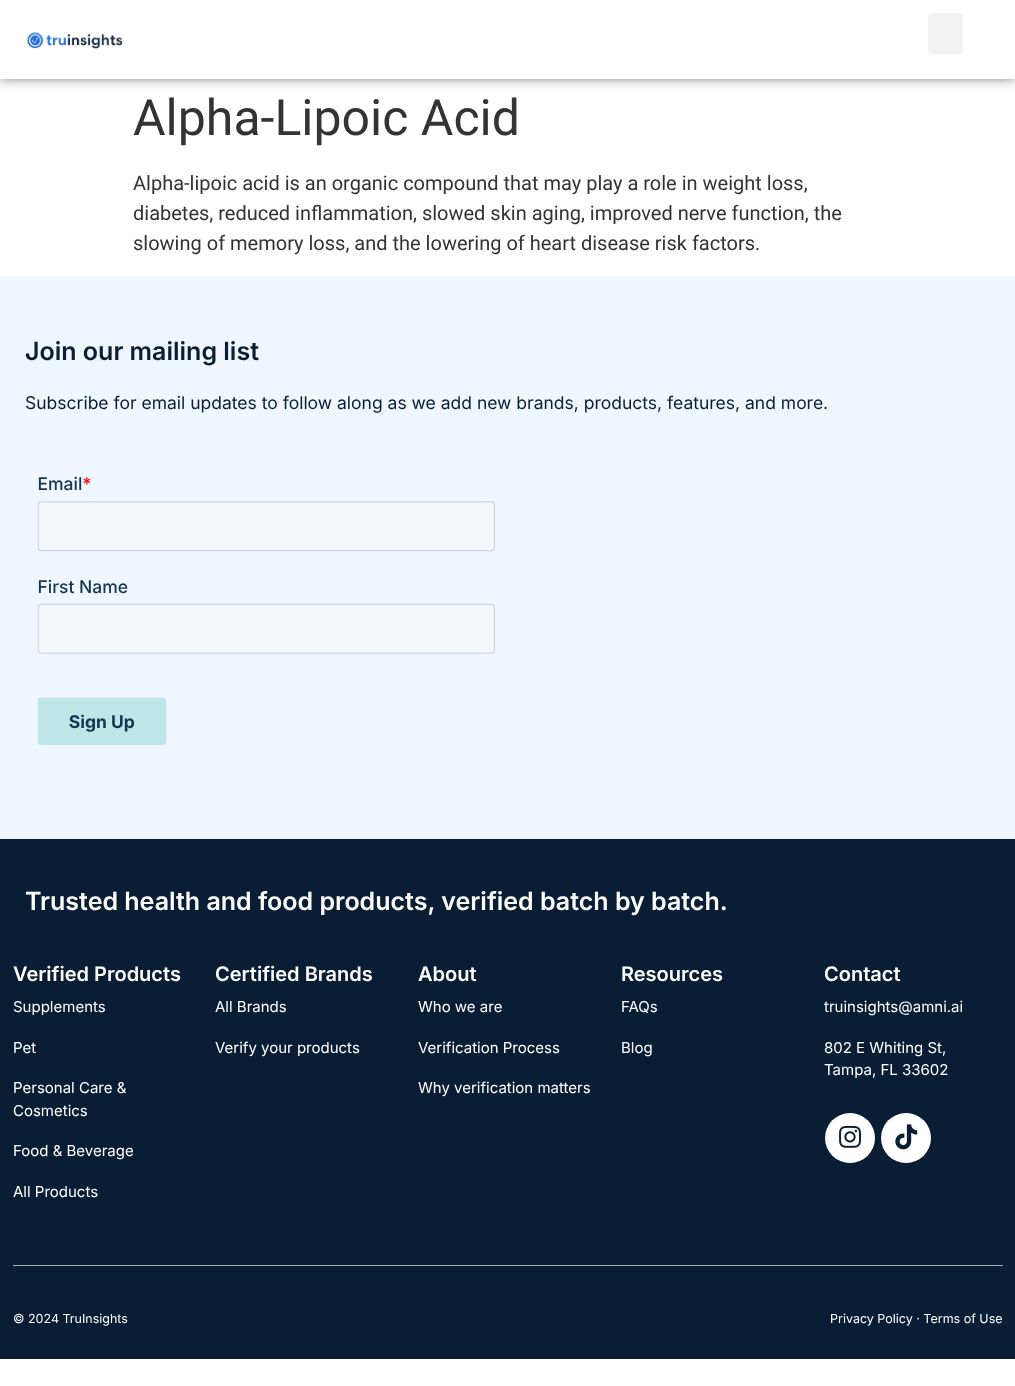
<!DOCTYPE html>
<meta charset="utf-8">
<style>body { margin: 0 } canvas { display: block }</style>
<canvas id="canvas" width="1015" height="1386"></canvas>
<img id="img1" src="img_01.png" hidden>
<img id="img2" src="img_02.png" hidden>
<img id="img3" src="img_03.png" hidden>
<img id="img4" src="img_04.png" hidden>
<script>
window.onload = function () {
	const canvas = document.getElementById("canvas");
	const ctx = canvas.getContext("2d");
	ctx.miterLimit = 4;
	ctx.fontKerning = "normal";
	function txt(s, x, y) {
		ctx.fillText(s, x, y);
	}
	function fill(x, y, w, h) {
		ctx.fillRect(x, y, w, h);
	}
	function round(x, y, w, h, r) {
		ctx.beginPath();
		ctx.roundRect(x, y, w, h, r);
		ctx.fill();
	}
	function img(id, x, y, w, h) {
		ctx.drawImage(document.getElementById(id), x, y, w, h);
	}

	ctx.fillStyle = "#FFFFFF";
	fill(0, 0, 1015, 1386);
	ctx.fillStyle = "rgba(0, 0, 0, 0.5)";
	ctx.filter = "blur(6px)";
	ctx.beginPath();
	ctx.rect(0, 0, 1015, 79);
	ctx.fill();
	ctx.filter = "none";
	ctx.fillStyle = "#FFFFFF";
	fill(0, 0, 1015, 79);
	img("img1", 27, 32, 96, 17);
	ctx.fillStyle = "#F2F2F2";
	round(928, 13, 35, 41, 4);
	ctx.fillStyle = "#F0F6FD";
	fill(0, 276, 1015, 563);
	img("img2", 37, 476, 458, 269);
	ctx.fillStyle = "#091E35";
	fill(0, 839, 1015, 520);
	ctx.fillStyle = "#FFFFFF";
	ctx.beginPath();
	ctx.arc(850, 1138, 25, 0, Math.PI * 2);
	ctx.fill();
	img("img3", 839, 1125, 22, 23);
	ctx.beginPath();
	ctx.arc(906, 1138, 25, 0, Math.PI * 2);
	ctx.fill();
	img("img4", 895, 1124, 23, 26);
	ctx.fillStyle = "#A6AEB6";
	fill(13, 1265, 990, 1);
	ctx.font = "50px Roboto";
	ctx.fillStyle = "#333333";
	txt("Alpha-Lipoic Acid", 133, 135);
	ctx.font = "20px Roboto";
	txt("Alpha-lipoic acid is an organic compound that may play a role in weight loss,", 133, 190);
	txt("diabetes, reduced inflammation, slowed skin aging, improved nerve function, the", 133, 220);
	txt("slowing of memory loss, and the lowering of heart disease risk factors.", 133, 250);
	ctx.font = "600 25px Inter";
	ctx.fillStyle = "#091E35";
	txt("Join our mailing list", 25, 360);
	ctx.font = "17.5px Inter";
	txt("Subscribe for email updates to follow along as we add new brands, products, features, and more.", 25, 409);
	ctx.font = "600 25px Inter";
	ctx.fillStyle = "#FFFFFF";
	txt("Trusted health and food products, verified batch by batch.", 25, 910);
	ctx.font = "600 20px Inter";
	txt("Verified Products", 13, 981);
	ctx.font = "15px Inter";
	txt("Supplements", 13, 1012);
	txt("Pet", 13, 1053);
	txt("Personal Care &", 13, 1093);
	txt("Cosmetics", 13, 1116);
	txt("Food & Beverage", 13, 1156);
	txt("All Products", 13, 1197);
	ctx.font = "600 20px Inter";
	txt("Certified Brands", 215, 981);
	ctx.font = "15px Inter";
	txt("All Brands", 215, 1012);
	txt("Verify your products", 215, 1053);
	ctx.font = "600 20px Inter";
	txt("About", 418, 981);
	ctx.font = "15px Inter";
	txt("Who we are", 418, 1012);
	txt("Verification Process", 418, 1053);
	txt("Why verification matters", 418, 1093);
	ctx.font = "600 20px Inter";
	txt("Resources", 621, 981);
	ctx.font = "15px Inter";
	txt("FAQs", 621, 1012);
	txt("Blog", 621, 1053);
	ctx.font = "600 20px Inter";
	txt("Contact", 824, 981);
	ctx.font = "15px Inter";
	txt("truinsights@amni.ai", 824, 1012);
	txt("802 E Whiting St,", 824, 1053);
	txt("Tampa, FL 33602", 824, 1075);
	ctx.font = "12.5px Inter";
	txt("© 2024 TruInsights", 13, 1323);
	txt("Privacy Policy · Terms of Use", 830, 1323);
};
</script>
